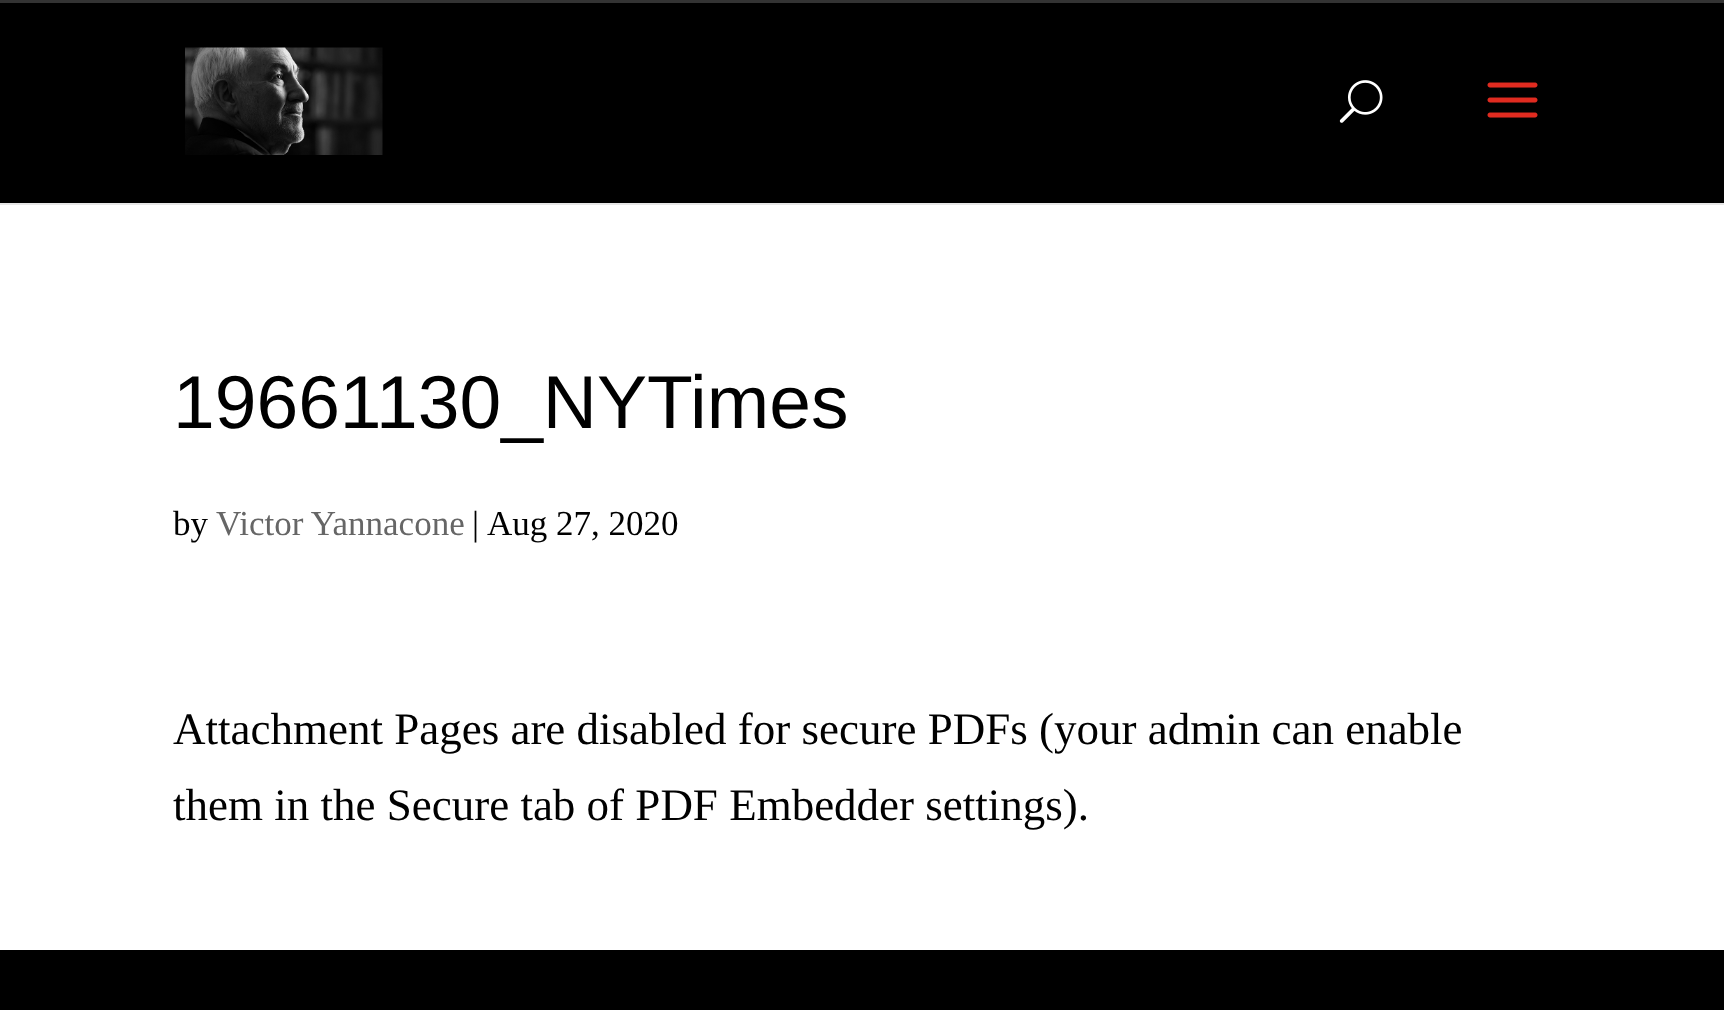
<!DOCTYPE html>
<meta charset="utf-8">
<style>body { margin: 0 } canvas { display: block }</style>
<canvas id="canvas" width="1724" height="1010"></canvas>
<img id="img1" src="img_01.png" hidden>
<img id="img2" src="img_02.png" hidden>
<img id="img3" src="img_03.png" hidden>
<script>
window.onload = function () {
	const canvas = document.getElementById("canvas");
	const ctx = canvas.getContext("2d");
	ctx.miterLimit = 4;
	ctx.fontKerning = "normal";
	function txt(s, x, y) {
		ctx.fillText(s, x, y);
	}
	function fill(x, y, w, h) {
		ctx.fillRect(x, y, w, h);
	}
	function img(id, x, y, w, h) {
		ctx.drawImage(document.getElementById(id), x, y, w, h);
	}

	ctx.fillStyle = "#FFFFFF";
	fill(0, 0, 1724, 1010);
	ctx.fillStyle = "#333333";
	fill(0, 0, 1724, 3);
	ctx.fillStyle = "#E6E6E6";
	fill(0, 203, 1724, 2);
	ctx.fillStyle = "#000000";
	fill(0, 3, 1724, 200);
	img("img1", 185, 47, 198, 108);
	img("img2", 1339, 80, 44, 43);
	img("img3", 1487, 82, 51, 36);
	fill(0, 950, 1724, 60);
	ctx.font = "75px Liberation Sans";
	txt("19661130_NYTimes", 173, 428);
	ctx.font = "35px Liberation Serif";
	txt("by", 173, 535);
	ctx.fillStyle = "#666666";
	txt("Victor Yannacone", 216, 535);
	ctx.fillStyle = "#000000";
	txt("|", 472, 535);
	txt("Aug 27, 2020", 487, 535);
	ctx.font = "45px Liberation Serif";
	txt("Attachment Pages are disabled for secure PDFs (your admin can enable", 173, 744);
	txt("them in the Secure tab of PDF Embedder settings).", 173, 820);
};
</script>
